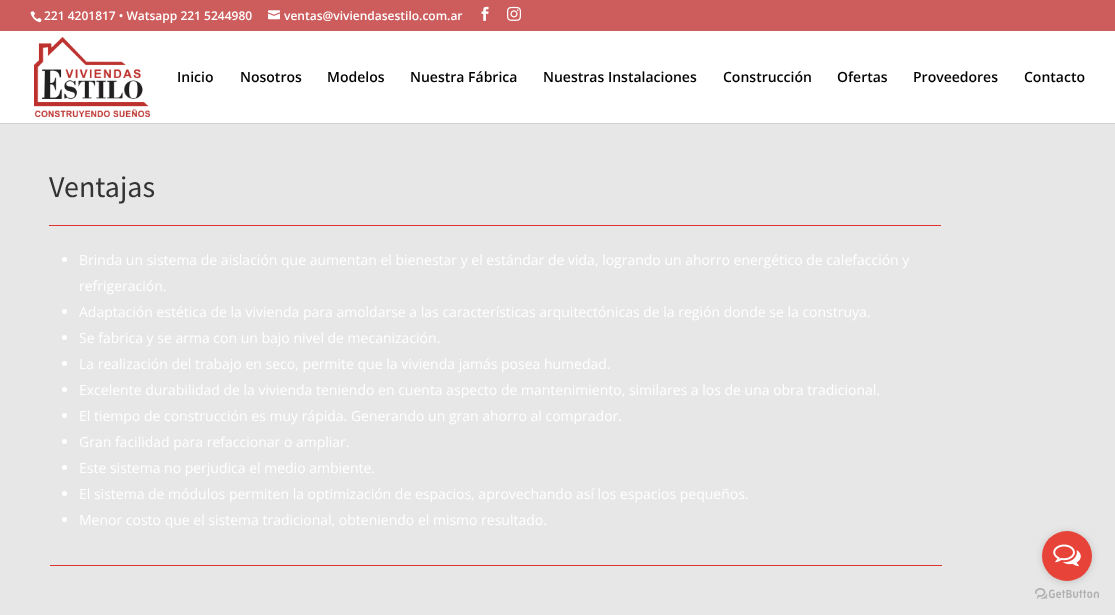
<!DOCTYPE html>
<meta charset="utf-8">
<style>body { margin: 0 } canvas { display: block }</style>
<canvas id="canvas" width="1115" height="615"></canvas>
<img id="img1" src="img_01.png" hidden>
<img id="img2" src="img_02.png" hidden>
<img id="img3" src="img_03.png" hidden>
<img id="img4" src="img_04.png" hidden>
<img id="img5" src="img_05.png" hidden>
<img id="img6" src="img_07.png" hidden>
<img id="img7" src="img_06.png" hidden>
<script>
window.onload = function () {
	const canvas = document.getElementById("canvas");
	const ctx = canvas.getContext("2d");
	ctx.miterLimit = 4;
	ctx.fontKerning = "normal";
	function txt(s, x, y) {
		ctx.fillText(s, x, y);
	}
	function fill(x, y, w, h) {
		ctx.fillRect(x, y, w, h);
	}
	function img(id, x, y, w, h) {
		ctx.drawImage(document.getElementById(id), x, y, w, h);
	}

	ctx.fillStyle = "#FFFFFF";
	fill(0, 0, 1115, 615);
	ctx.fillStyle = "#CD5C5C";
	fill(0, 0, 1115, 31);
	img("img1", 30, 11, 12, 12);
	img("img2", 268, 10, 12, 10);
	img("img3", 481, 6, 8, 15);
	img("img4", 507, 6, 14, 15);
	ctx.fillStyle = "#D0D0D0";
	fill(0, 123, 1115, 1);
	img("img5", 34, 37, 116, 80);
	ctx.fillStyle = "#E7E7E7";
	fill(0, 124, 1115, 491);
	ctx.fillStyle = "#DD3333";
	fill(49, 225, 892, 1);
	ctx.fillStyle = "#FFFFFF";
	ctx.beginPath();
	ctx.arc(64.5, 259.5, 2.5, 0, Math.PI * 2);
	ctx.fill();
	ctx.beginPath();
	ctx.arc(64.5, 311.5, 2.5, 0, Math.PI * 2);
	ctx.fill();
	ctx.beginPath();
	ctx.arc(64.5, 337.5, 2.5, 0, Math.PI * 2);
	ctx.fill();
	ctx.beginPath();
	ctx.arc(64.5, 363.5, 2.5, 0, Math.PI * 2);
	ctx.fill();
	ctx.beginPath();
	ctx.arc(64.5, 389.5, 2.5, 0, Math.PI * 2);
	ctx.fill();
	ctx.beginPath();
	ctx.arc(64.5, 415.5, 2.5, 0, Math.PI * 2);
	ctx.fill();
	ctx.beginPath();
	ctx.arc(64.5, 441.5, 2.5, 0, Math.PI * 2);
	ctx.fill();
	ctx.beginPath();
	ctx.arc(64.5, 467.5, 2.5, 0, Math.PI * 2);
	ctx.fill();
	ctx.beginPath();
	ctx.arc(64.5, 493.5, 2.5, 0, Math.PI * 2);
	ctx.fill();
	ctx.beginPath();
	ctx.arc(64.5, 519.5, 2.5, 0, Math.PI * 2);
	ctx.fill();
	ctx.fillStyle = "#DD3333";
	fill(50, 565, 892, 1);
	img("img6", 1035, 588, 64, 11);
	ctx.fillStyle = "rgba(136, 136, 136, 0.4)";
	ctx.filter = "blur(3.5px)";
	ctx.beginPath();
	ctx.roundRect(1042, 532, 50, 50, 25);
	ctx.fill();
	ctx.filter = "none";
	ctx.fillStyle = "#E74339";
	ctx.beginPath();
	ctx.arc(1067, 556, 25, 0, Math.PI * 2);
	ctx.fill();
	img("img7", 1053, 544, 28, 23);
	ctx.font = "600 12px Open Sans";
	ctx.fillStyle = "#FFFFFF";
	txt("221 4201817 • Watsapp 221 5244980", 44, 20);
	txt("ventas@viviendasestilo.com.ar", 284, 20);
	ctx.font = "600 14px Open Sans";
	ctx.fillStyle = "#020202";
	txt("Inicio", 177, 82);
	txt("Nosotros", 240, 82);
	txt("Modelos", 327, 82);
	txt("Nuestra Fábrica", 410, 82);
	txt("Nuestras Instalaciones", 543, 82);
	txt("Construcción", 723, 82);
	txt("Ofertas", 837, 82);
	txt("Proveedores", 913, 82);
	txt("Contacto", 1024, 82);
	ctx.font = "30px Source Sans Pro";
	ctx.fillStyle = "#333333";
	txt("Ventajas", 49, 197);
	ctx.font = "14px Open Sans";
	ctx.fillStyle = "#FFFFFF";
	txt("Brinda un sistema de aislación que aumentan el bienestar y el estándar de vida, logrando un ahorro energético de calefacción y", 79, 265);
	txt("refrigeración.", 79, 291);
	txt("Adaptación estética de la vivienda para amoldarse a las características arquitectónicas de la región donde se la construya.", 79, 317);
	txt("Se fabrica y se arma con un bajo nivel de mecanización.", 79, 343);
	txt("La realización del trabajo en seco, permite que la vivienda jamás posea humedad.", 79, 369);
	txt("Excelente durabilidad de la vivienda teniendo en cuenta aspecto de mantenimiento, similares a los de una obra tradicional.", 79, 395);
	txt("El tiempo de construcción es muy rápida. Generando un gran ahorro al comprador.", 79, 421);
	txt("Gran facilidad para refaccionar o ampliar.", 79, 447);
	txt("Este sistema no perjudica el medio ambiente.", 79, 473);
	txt("El sistema de módulos permiten la optimización de espacios, aprovechando así los espacios pequeños.", 79, 499);
	txt("Menor costo que el sistema tradicional, obteniendo el mismo resultado.", 79, 525);
};
</script>
